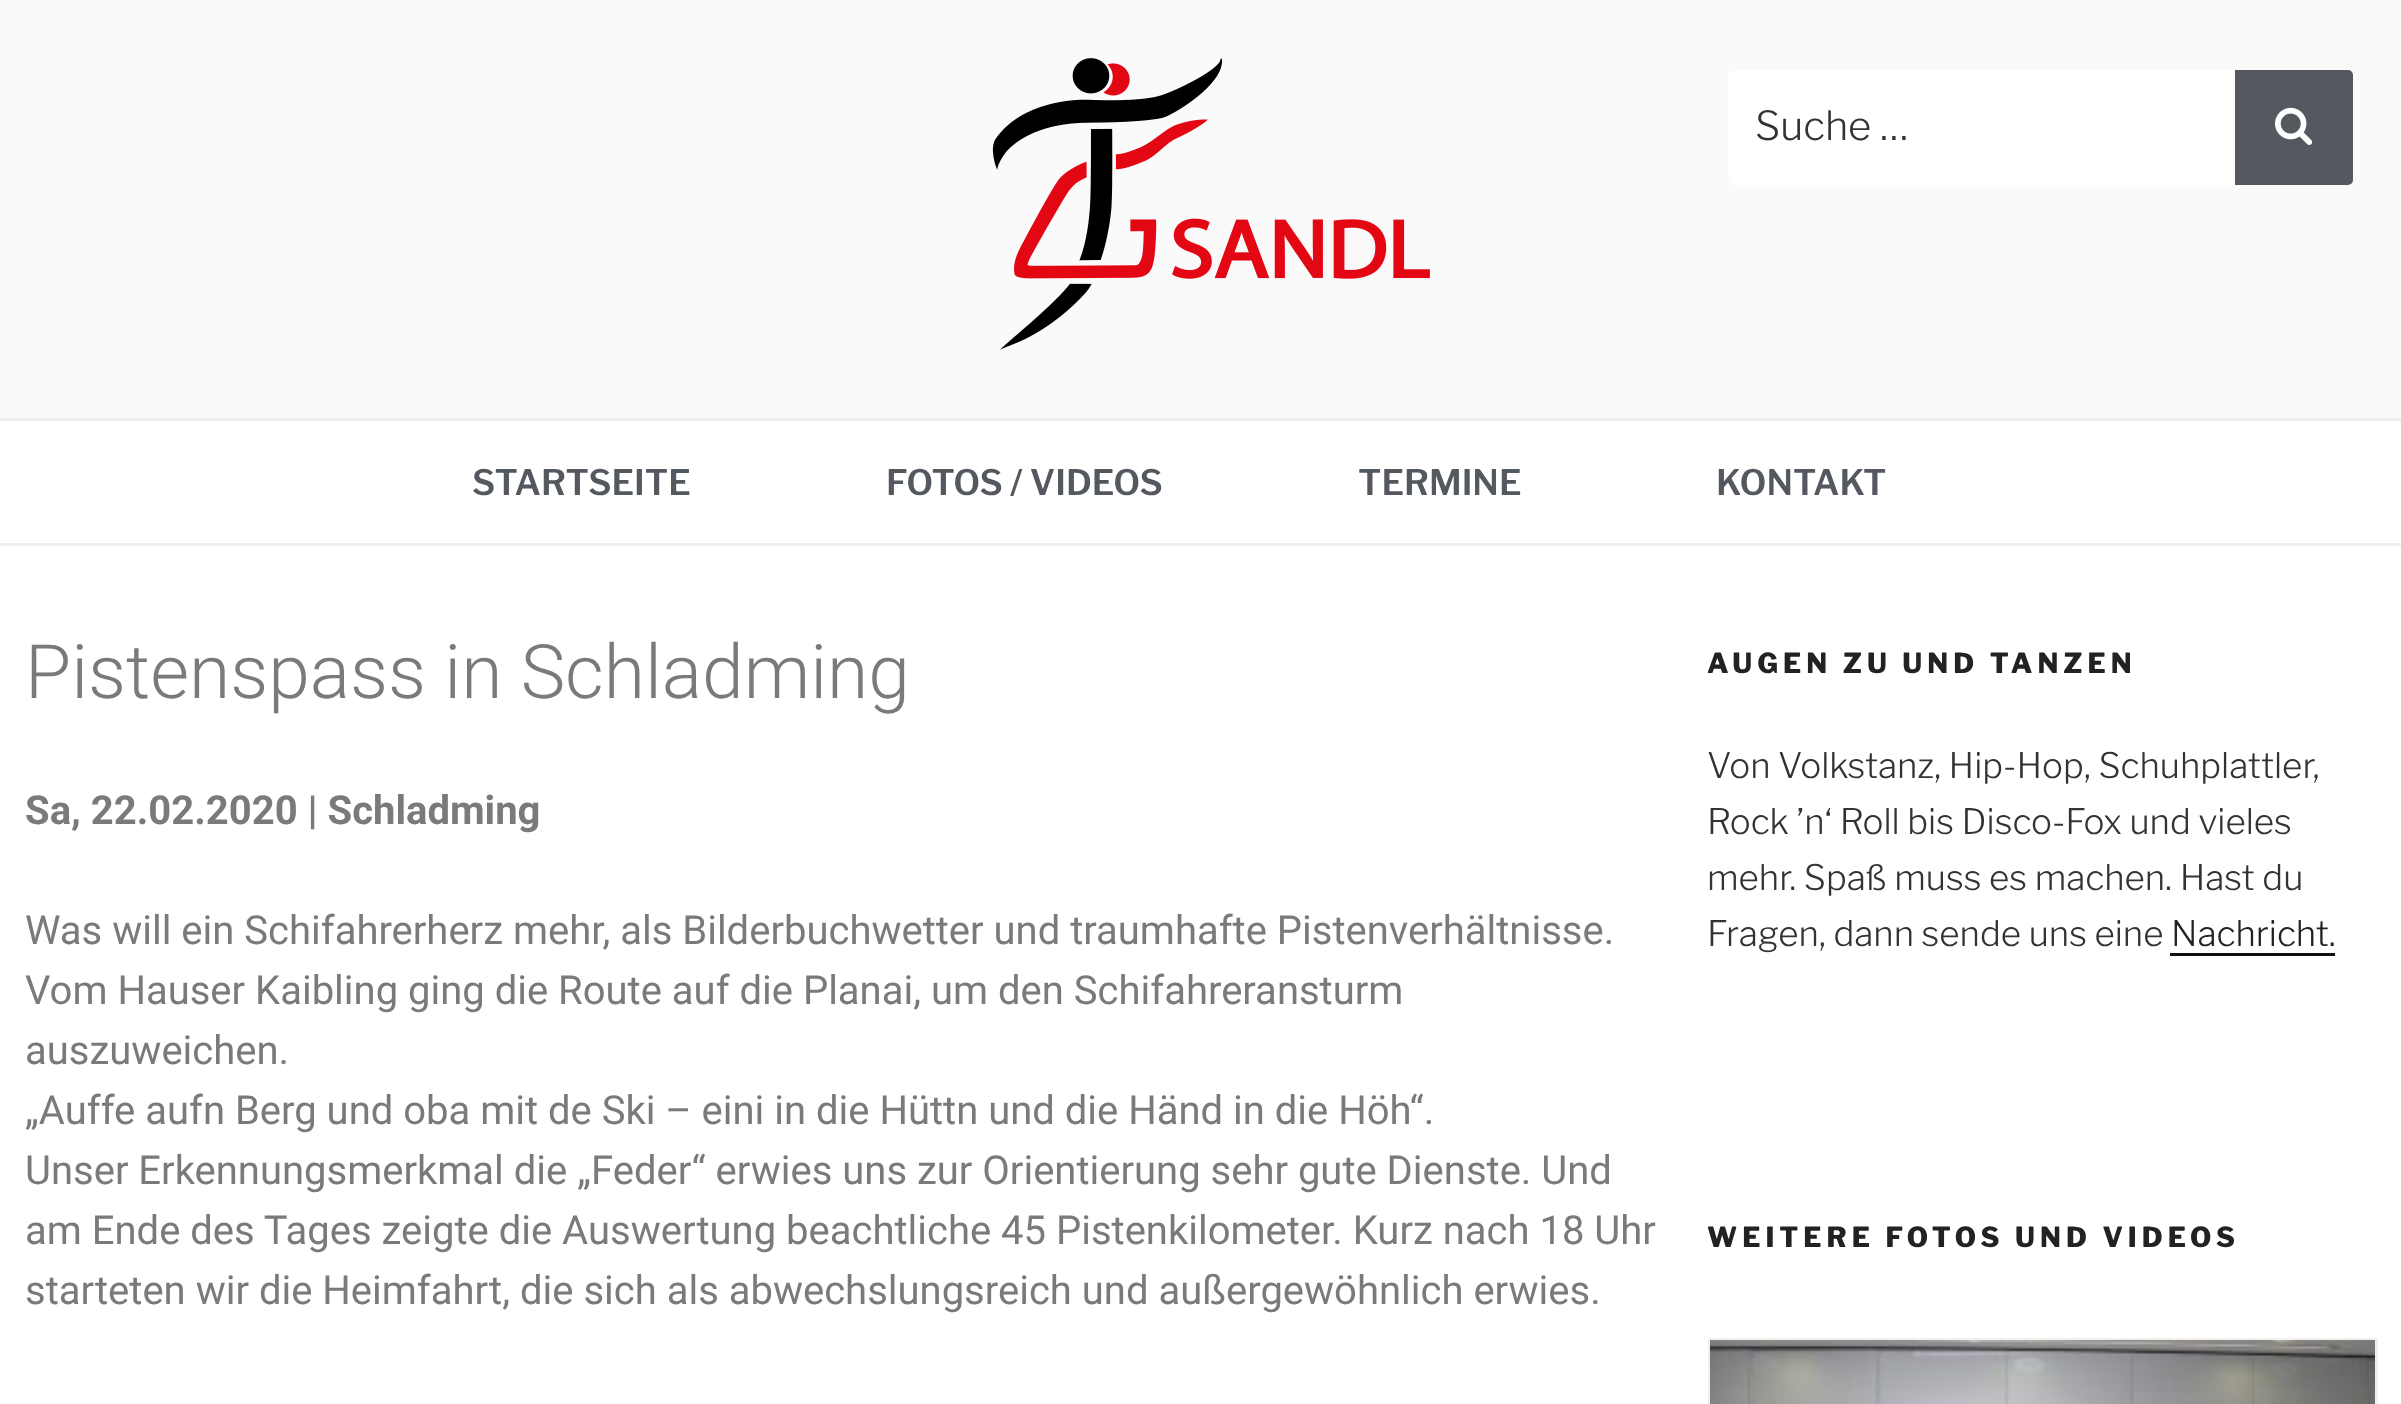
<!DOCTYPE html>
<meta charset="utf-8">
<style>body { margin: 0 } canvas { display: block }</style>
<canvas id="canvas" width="2401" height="1404"></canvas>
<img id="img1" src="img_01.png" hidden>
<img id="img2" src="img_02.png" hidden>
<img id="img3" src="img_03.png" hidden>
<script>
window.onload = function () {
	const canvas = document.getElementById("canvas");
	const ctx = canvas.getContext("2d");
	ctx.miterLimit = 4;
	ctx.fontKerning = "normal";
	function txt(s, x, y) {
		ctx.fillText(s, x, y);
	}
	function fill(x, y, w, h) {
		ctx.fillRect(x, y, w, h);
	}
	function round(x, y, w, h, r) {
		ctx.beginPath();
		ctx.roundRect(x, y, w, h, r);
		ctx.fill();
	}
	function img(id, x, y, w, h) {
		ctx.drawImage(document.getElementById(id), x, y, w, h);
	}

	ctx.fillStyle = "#FFFFFF";
	fill(0, 0, 2401, 1404);
	ctx.fillStyle = "#FAFAFA";
	fill(0, 0, 2401, 418);
	img("img1", 992, 58, 438, 292);
	ctx.fillStyle = "#FFFFFF";
	round(1728, 70, 625, 115, 8);
	ctx.fillStyle = "#54595F";
	ctx.beginPath();
	ctx.roundRect(2235, 70, 118, 115, [0, 5, 5, 0]);
	ctx.fill();
	img("img2", 2275, 107, 38, 38);
	ctx.fillStyle = "#EEEEEE";
	fill(0, 418, 2401, 3);
	fill(0, 543, 2401, 3);
	ctx.fillStyle = "#0F0F0F";
	fill(2170, 953, 165, 3);
	ctx.strokeStyle = "#F2EFEF";
	ctx.lineWidth = 3;
	ctx.strokeRect(1709.5, 1339.5, 667, 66);
	img("img3", 1710, 1340, 665, 64);
	ctx.font = "300 40px Libre Franklin";
	ctx.fillStyle = "#333333";
	txt("Suche …", 1755, 140);
	ctx.font = "600 35px Libre Franklin";
	ctx.fillStyle = "#54595F";
	txt("STARTSEITE", 472, 495);
	txt("FOTOS / VIDEOS", 886, 495);
	txt("TERMINE", 1358, 495);
	txt("KONTAKT", 1716, 495);
	ctx.font = "300 75px Roboto";
	ctx.fillStyle = "#7A7A7A";
	txt("Pistenspass in Schladming", 25, 698);
	ctx.font = "bold 40px Roboto";
	txt("Sa, 22.02.2020 | Schladming", 25, 824);
	ctx.font = "40px Roboto";
	txt("Was will ein Schifahrerherz mehr, als Bilderbuchwetter und traumhafte Pistenverhältnisse.", 25, 944);
	txt("Vom Hauser Kaibling ging die Route auf die Planai, um den Schifahreransturm", 25, 1004);
	txt("auszuweichen.", 25, 1064);
	txt("„Auffe aufn Berg und oba mit de Ski – eini in die Hüttn und die Händ in die Höh“.", 25, 1124);
	txt("Unser Erkennungsmerkmal die „Feder“ erwies uns zur Orientierung sehr gute Dienste. Und", 25, 1184);
	txt("am Ende des Tages zeigte die Auswertung beachtliche 45 Pistenkilometer. Kurz nach 18 Uhr", 25, 1244);
	txt("starteten wir die Heimfahrt, die sich als abwechslungsreich und außergewöhnlich erwies.", 25, 1304);
	ctx.letterSpacing = "5px";
	ctx.font = "800 27.5px Libre Franklin";
	ctx.fillStyle = "#222222";
	txt("AUGEN ZU UND TANZEN", 1707, 673);
	ctx.letterSpacing = "0px";
	ctx.font = "300 35px Libre Franklin";
	ctx.fillStyle = "#333333";
	txt("Von Volkstanz, Hip-Hop, Schuhplattler,", 1707, 778);
	txt("Rock ’n‘ Roll bis Disco-Fox und vieles", 1707, 834);
	txt("mehr. Spaß muss es machen. Hast du", 1707, 890);
	txt("Fragen, dann sende uns eine", 1707, 946);
	ctx.fillStyle = "#222222";
	txt("Nachricht.", 2171, 946);
	ctx.letterSpacing = "5px";
	ctx.font = "800 27.5px Libre Franklin";
	txt("WEITERE FOTOS UND VIDEOS", 1707, 1247);
};
</script>
